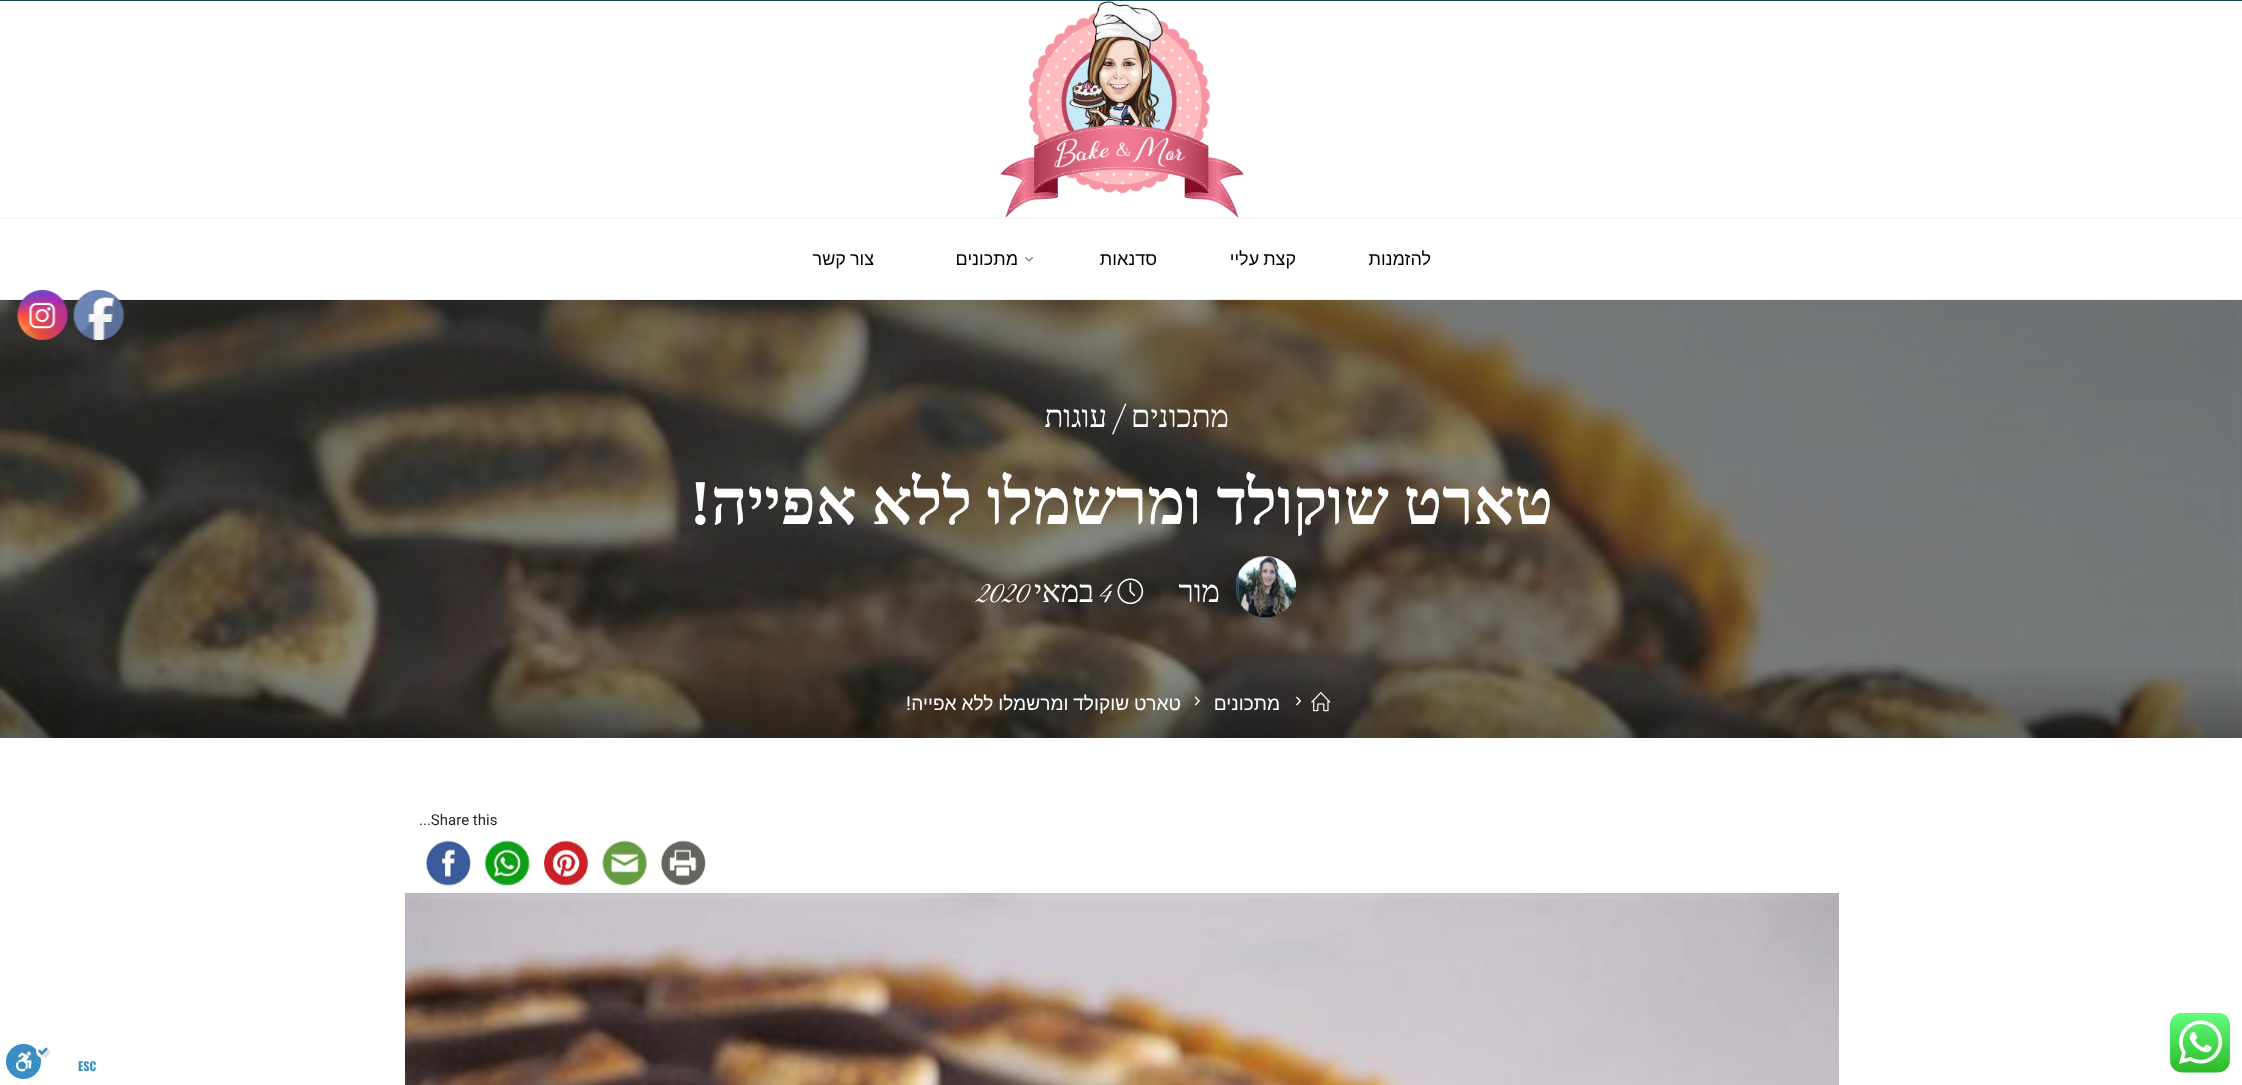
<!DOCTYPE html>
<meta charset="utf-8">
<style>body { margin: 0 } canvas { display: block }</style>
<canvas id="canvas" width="2242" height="1085"></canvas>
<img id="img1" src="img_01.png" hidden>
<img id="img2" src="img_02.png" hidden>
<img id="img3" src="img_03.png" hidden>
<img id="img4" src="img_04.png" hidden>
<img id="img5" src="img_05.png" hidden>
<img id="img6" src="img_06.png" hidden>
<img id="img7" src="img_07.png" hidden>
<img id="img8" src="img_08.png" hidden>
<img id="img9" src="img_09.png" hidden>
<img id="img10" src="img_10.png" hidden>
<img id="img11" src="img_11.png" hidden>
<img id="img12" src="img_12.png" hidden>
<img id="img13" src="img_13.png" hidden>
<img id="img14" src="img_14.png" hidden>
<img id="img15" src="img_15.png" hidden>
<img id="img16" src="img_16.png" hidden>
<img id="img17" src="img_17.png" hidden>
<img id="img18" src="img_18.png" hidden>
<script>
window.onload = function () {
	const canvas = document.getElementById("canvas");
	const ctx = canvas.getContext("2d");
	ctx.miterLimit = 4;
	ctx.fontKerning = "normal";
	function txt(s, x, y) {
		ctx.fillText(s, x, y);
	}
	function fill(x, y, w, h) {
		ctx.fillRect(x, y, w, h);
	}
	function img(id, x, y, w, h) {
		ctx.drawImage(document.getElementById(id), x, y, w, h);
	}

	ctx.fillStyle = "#FFFFFF";
	fill(0, 0, 2242, 1085);
	img("img1", 1000, 1, 244, 217);
	ctx.fillStyle = "#F2F2F2";
	fill(0, 218, 2242, 1);
	fill(0, 299, 2242, 1);
	img("img2", 1025, 257, 9, 5);
	img("img3", 0, 300, 2242, 438);
	img("img4", 1235, 556, 62, 62);
	img("img5", 1117, 578, 27, 27);
	img("img6", 1311, 692, 20, 20);
	img("img7", 1296, 696, 5, 10);
	img("img8", 1194, 696, 6, 10);
	img("img9", 661, 840, 45, 46);
	img("img10", 602, 840, 45, 46);
	img("img11", 544, 840, 44, 46);
	img("img12", 484, 840, 46, 46);
	img("img13", 426, 840, 45, 46);
	img("img14", 405, 893, 1434, 192);
	img("img15", 73, 290, 52, 50);
	img("img16", 17, 290, 51, 50);
	img("img17", 2170, 1013, 60, 60);
	ctx.fillStyle = "#15495F";
	fill(0, 0, 2242, 1);
	img("img18", 6, 1044, 44, 35);
	ctx.direction = "rtl";
	ctx.font = "18px Liberation Sans";
	ctx.fillStyle = "#000000";
	txt("להזמנות", 1431, 265);
	ctx.wordSpacing = "-1px";
	txt("קצת עליי", 1296, 265);
	ctx.wordSpacing = "0px";
	txt("סדנאות", 1157, 265);
	txt("מתכונים", 1018, 265);
	ctx.wordSpacing = "-1px";
	txt("צור קשר", 874, 265);
	ctx.wordSpacing = "0px";
	ctx.font = "31px Liberation Serif";
	ctx.fillStyle = "#FFFFFF";
	txt("מתכונים", 1229, 427);
	ctx.direction = "ltr";
	ctx.font = "31px Great Vibes";
	txt("|", 1112, 427);
	ctx.direction = "rtl";
	ctx.font = "31px Liberation Serif";
	txt("עוגות", 1107, 427);
	ctx.wordSpacing = "-1px";
	ctx.font = "bold 63.75px Liberation Serif";
	txt("טארט שוקולד ומרשמלו ללא אפייה!", 1553, 524);
	ctx.wordSpacing = "0px";
	ctx.font = "31px Liberation Serif";
	txt("מור", 1220, 602);
	ctx.direction = "ltr";
	ctx.font = "31px Great Vibes";
	txt("4", 1099, 602);
	ctx.direction = "rtl";
	ctx.font = "31px Liberation Serif";
	txt("במאי", 1094, 602);
	ctx.direction = "ltr";
	ctx.font = "31px Great Vibes";
	txt("2020", 977, 602);
	ctx.direction = "rtl";
	ctx.font = "19.1px Liberation Sans";
	txt("מתכונים", 1280, 710);
	ctx.wordSpacing = "-0.5px";
	txt("טארט שוקולד ומרשמלו ללא אפייה", 1181, 710);
	ctx.wordSpacing = "0px";
	ctx.font = "19.1px Roboto";
	txt("!", 911, 710);
	ctx.direction = "ltr";
	ctx.font = "15px Roboto";
	ctx.fillStyle = "#272727";
	txt("...Share this", 419, 825);
	ctx.font = "bold 12px Oswald";
	ctx.fillStyle = "#3A8DC2";
	txt("ESC", 78, 1071);
};
</script>
